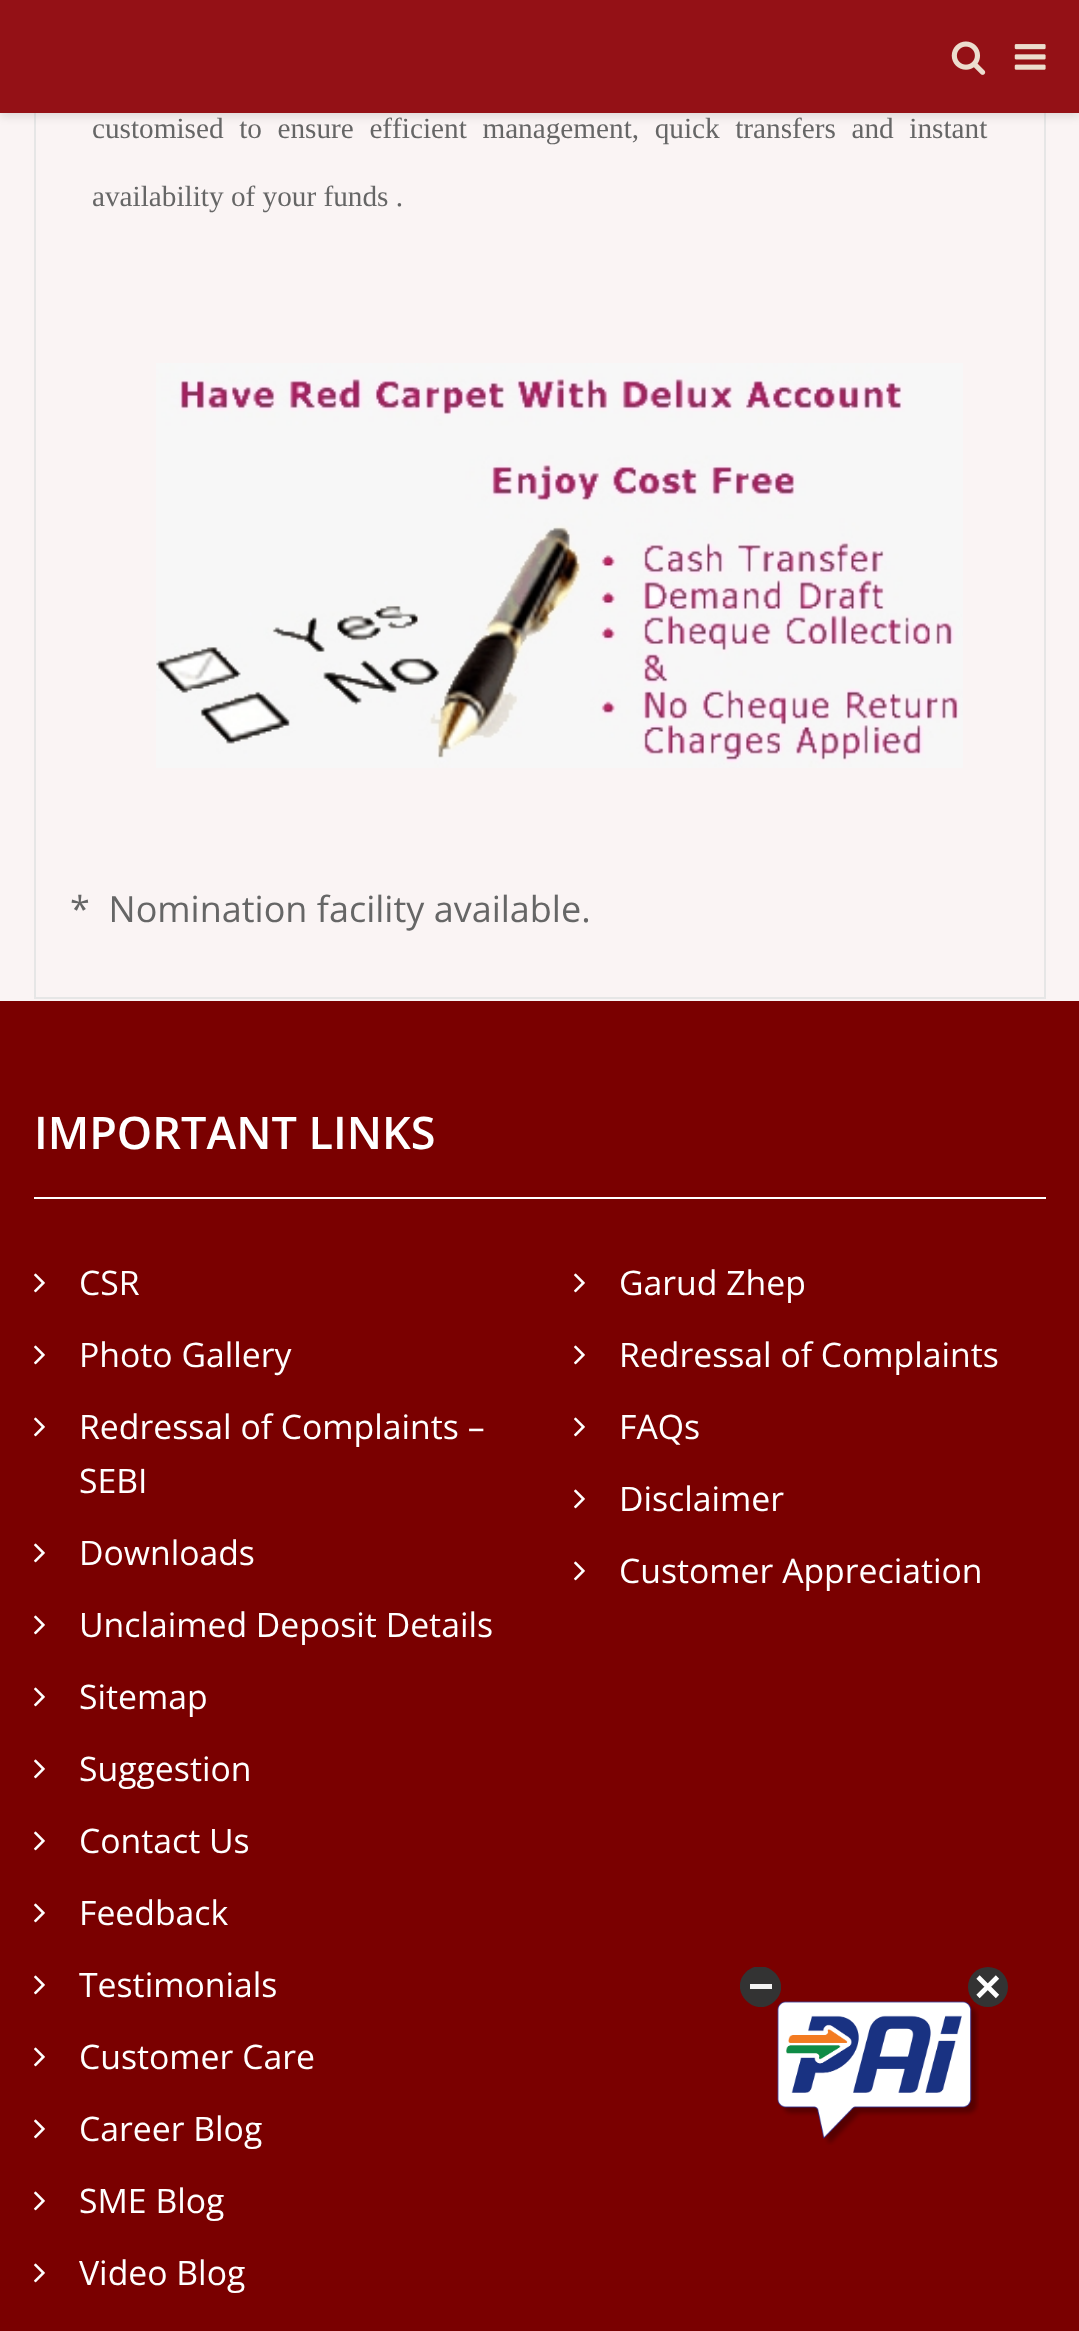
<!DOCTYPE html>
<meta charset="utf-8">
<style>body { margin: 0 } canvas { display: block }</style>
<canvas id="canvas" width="1079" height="2331"></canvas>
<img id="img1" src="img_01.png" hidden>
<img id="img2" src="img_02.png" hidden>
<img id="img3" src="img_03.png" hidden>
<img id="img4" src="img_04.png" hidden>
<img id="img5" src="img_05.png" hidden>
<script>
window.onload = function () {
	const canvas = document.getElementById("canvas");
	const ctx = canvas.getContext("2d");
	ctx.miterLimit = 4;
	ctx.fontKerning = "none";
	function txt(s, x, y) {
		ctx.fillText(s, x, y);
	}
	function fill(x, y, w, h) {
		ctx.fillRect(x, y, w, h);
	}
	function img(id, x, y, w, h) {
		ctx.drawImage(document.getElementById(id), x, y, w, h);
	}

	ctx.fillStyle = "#FAF4F4";
	fill(0, 0, 1079, 2331);
	ctx.strokeStyle = "#E6E6E6";
	ctx.lineWidth = 2;
	ctx.strokeRect(35, -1, 1010, 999);
	ctx.fillStyle = "rgba(0, 0, 0, 0.1)";
	ctx.filter = "blur(4.5px)";
	ctx.beginPath();
	ctx.rect(0, 5, 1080, 112);
	ctx.fill();
	ctx.filter = "none";
	ctx.fillStyle = "#941116";
	fill(0, 0, 1079, 113);
	img("img1", 951, 41, 35, 34);
	img("img2", 1014, 44, 32, 26);
	img("img3", 156, 363, 807, 405);
	ctx.fillStyle = "#7A0000";
	fill(0, 1001, 1079, 1330);
	ctx.fillStyle = "#FFFFFF";
	fill(34, 1197, 1012, 2);
	img("img4", 34, 1273, 11, 20);
	img("img4", 34, 1345, 11, 20);
	img("img4", 34, 1417, 11, 20);
	img("img4", 34, 1543, 11, 20);
	img("img4", 34, 1615, 11, 20);
	img("img4", 574, 1273, 11, 20);
	img("img4", 574, 1345, 11, 20);
	img("img4", 574, 1417, 11, 20);
	img("img4", 574, 1489, 11, 20);
	img("img4", 574, 1561, 11, 20);
	img("img4", 34, 1687, 11, 20);
	img("img4", 34, 1759, 11, 20);
	img("img4", 34, 1831, 11, 20);
	img("img4", 34, 1903, 11, 20);
	img("img4", 34, 1975, 11, 20);
	img("img4", 34, 2047, 11, 20);
	img("img4", 34, 2119, 11, 20);
	img("img4", 34, 2191, 11, 20);
	img("img4", 34, 2263, 11, 20);
	img("img5", 777, 2001, 202, 144);
	ctx.save();
	ctx.beginPath();
	ctx.rect(740, 1967, 41, 40);
	ctx.clip();
	ctx.fillStyle = "#333333";
	ctx.beginPath();
	ctx.moveTo(746, 1972);
	ctx.bezierCurveTo(765, 1954, 794, 1982, 775, 2001);
	ctx.bezierCurveTo(756, 2020, 727, 1991, 746, 1972);
	ctx.closePath();
	ctx.fill();
	ctx.restore();
	ctx.fillStyle = "#F3F3F3";
	fill(750, 1984, 22, 5);
	ctx.fillStyle = "#333333";
	ctx.beginPath();
	ctx.arc(988, 1987, 20, 0, Math.PI * 2);
	ctx.fill();
	ctx.beginPath();
	ctx.moveTo(978, 1977);
	ctx.lineTo(997.5, 1996.5);
	ctx.moveTo(978, 1996.5);
	ctx.lineTo(997.5, 1977);
	ctx.strokeStyle = "#FFFFFF";
	ctx.lineWidth = 4.7;
	ctx.stroke();
	ctx.wordSpacing = "8.25px";
	ctx.font = "29.25px Liberation Serif";
	ctx.fillStyle = "#666666";
	txt("customised to ensure efficient management, quick transfers and instant", 92, 138);
	ctx.wordSpacing = "0px";
	txt("availability of your funds .", 92, 206);
	ctx.font = "36px Open Sans";
	txt("*  Nomination facility available.", 70, 922);
	ctx.font = "600 45px Open Sans";
	ctx.fillStyle = "#FFFFFF";
	txt("IMPORTANT LINKS", 34, 1149);
	ctx.font = "33.75px Open Sans";
	txt("CSR", 79, 1295);
	txt("Photo Gallery", 79, 1367);
	txt("Redressal of Complaints –", 79, 1439);
	txt("SEBI", 79, 1493);
	txt("Downloads", 79, 1565);
	txt("Unclaimed Deposit Details", 79, 1637);
	txt("Garud Zhep", 619, 1295);
	txt("Redressal of Complaints", 619, 1367);
	txt("FAQs", 619, 1439);
	txt("Disclaimer", 619, 1511);
	txt("Customer Appreciation", 619, 1583);
	txt("Sitemap", 79, 1709);
	txt("Suggestion", 79, 1781);
	txt("Contact Us", 79, 1853);
	txt("Feedback", 79, 1925);
	txt("Testimonials", 79, 1997);
	txt("Customer Care", 79, 2069);
	txt("Career Blog", 79, 2141);
	txt("SME Blog", 79, 2213);
	txt("Video Blog", 79, 2285);
};
</script>
